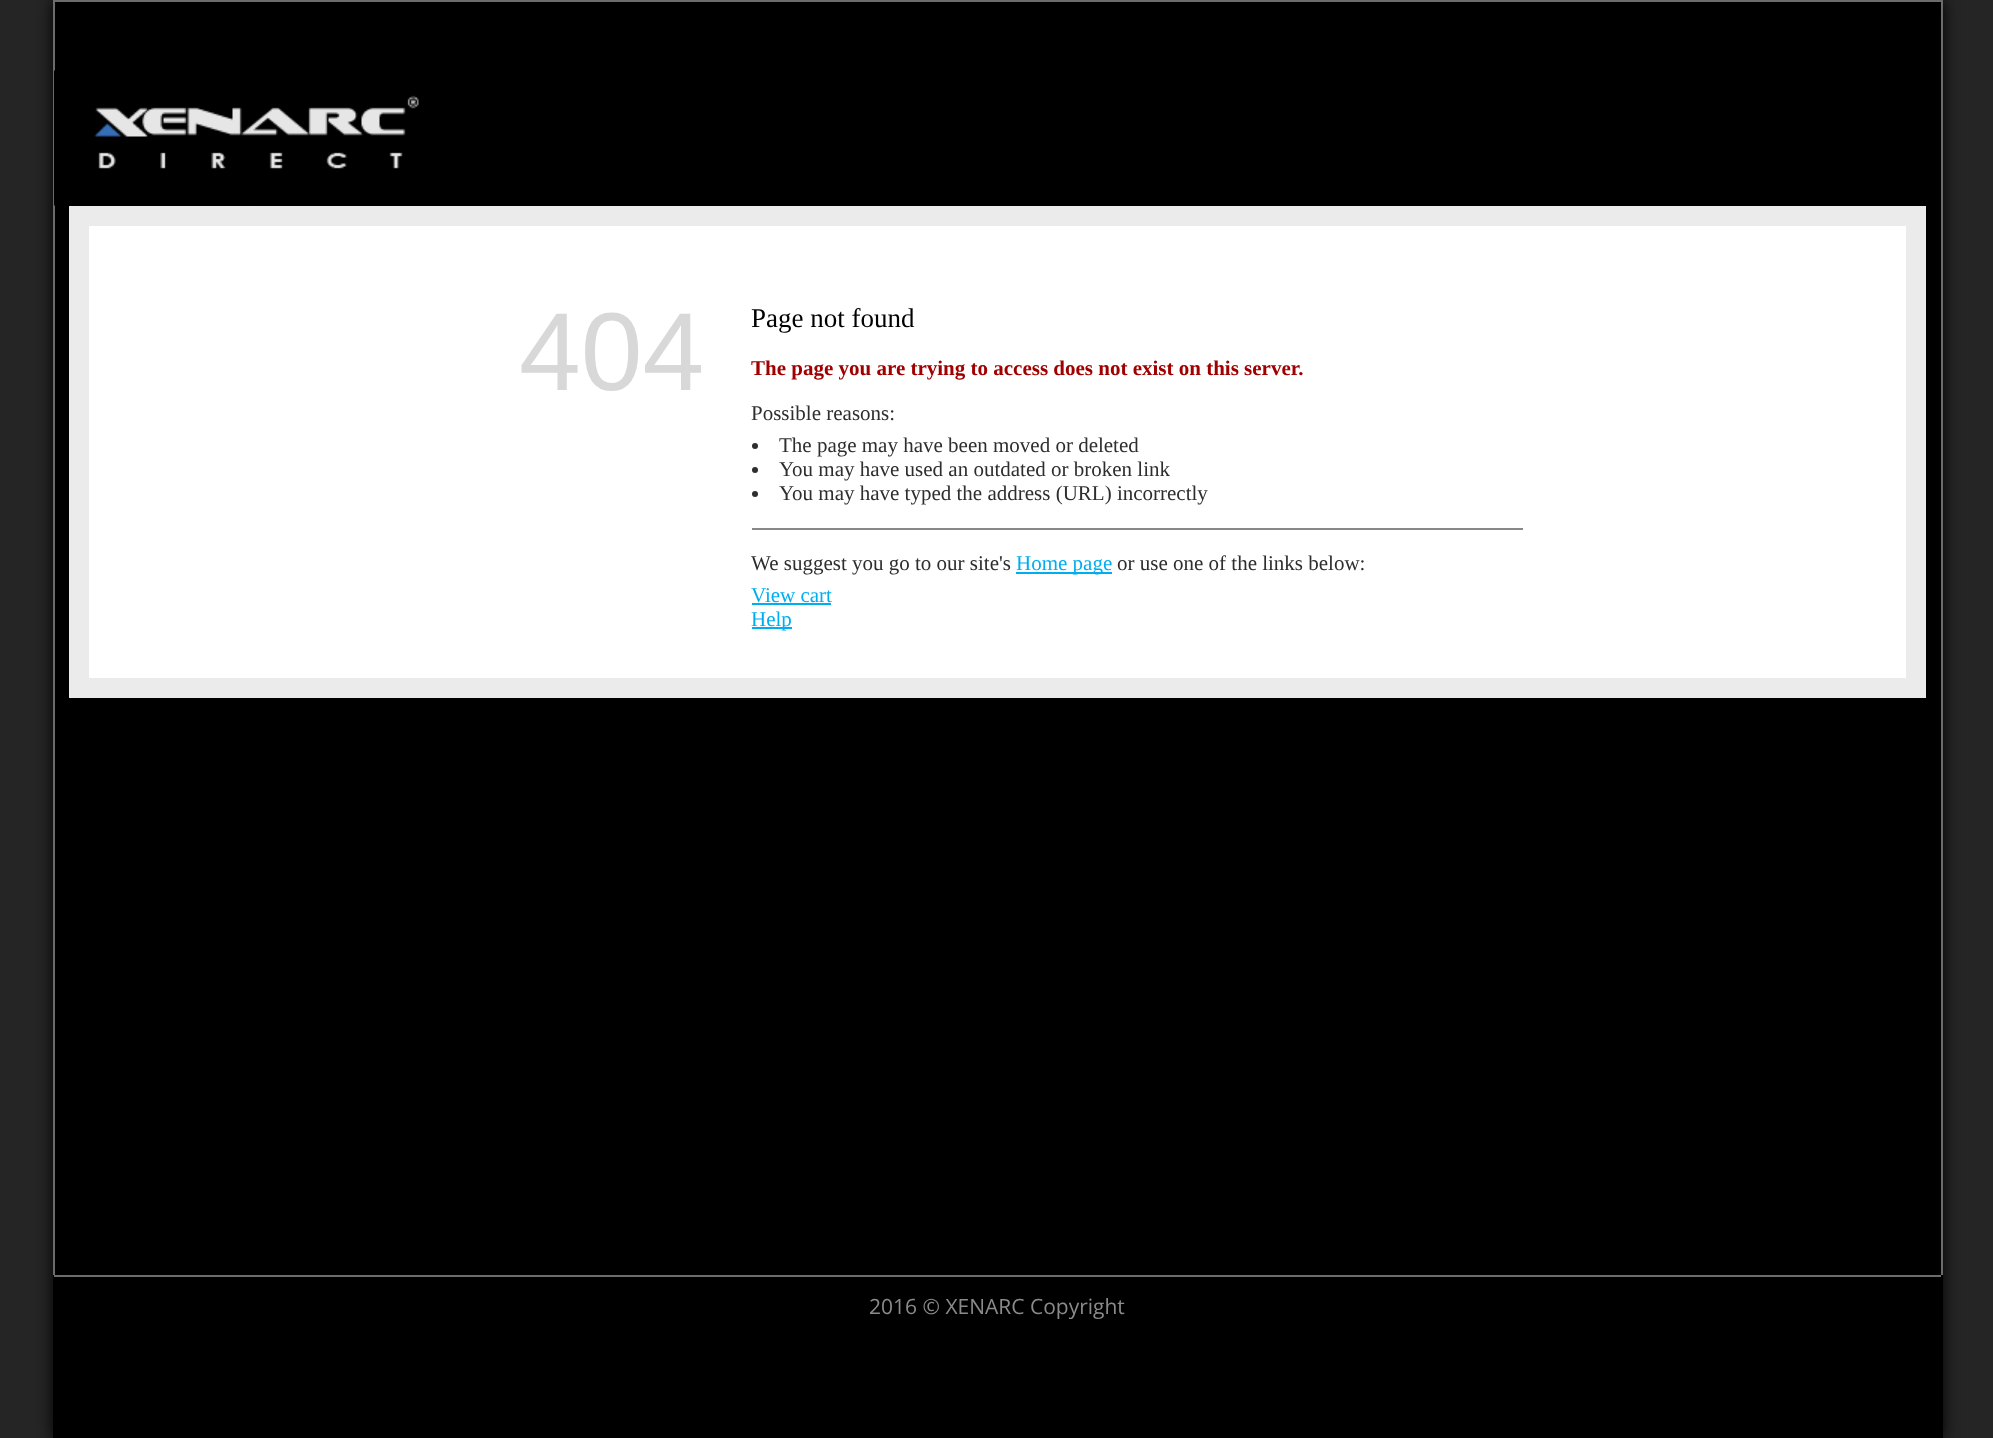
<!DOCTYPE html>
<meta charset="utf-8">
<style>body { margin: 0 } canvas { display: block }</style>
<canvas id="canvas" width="1993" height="1438"></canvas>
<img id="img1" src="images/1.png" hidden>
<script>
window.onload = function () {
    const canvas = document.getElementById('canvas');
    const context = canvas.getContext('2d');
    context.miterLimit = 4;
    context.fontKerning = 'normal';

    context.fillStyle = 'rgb(37, 37, 37)';
    context.fillRect(0, 0, 1993, 1438);
    context.fillStyle = 'rgb(0, 0, 0)';
    context.filter = 'blur(7.5px)';
    context.beginPath();
    context.rect(53, 0, 1890, 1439);
    context.fill();
    context.filter = 'none';
    context.fillRect(55, 2, 1886, 1436);
    context.fillStyle = 'rgb(109, 107, 108)';
    context.fillRect(53, 0, 1890, 2);
    context.fillRect(1941, 0, 2, 1275);
    context.fillRect(53, 0, 2, 1275);
    context.drawImage(document.getElementById('img1'), 54, 70, 365, 136);
    context.fillStyle = 'rgb(255, 255, 255)';
    context.beginPath();
    context.rect(79, 216, 1837, 472);
    context.fill();
    context.strokeStyle = 'rgb(235, 235, 235)';
    context.lineWidth = 20;
    context.stroke();
    context.fillStyle = 'rgb(46, 46, 46)';
    context.beginPath();
    context.arc(755, 446, 3, 0, 2 * Math.PI);
    context.fill();
    context.beginPath();
    context.arc(755, 470, 3, 0, 2 * Math.PI);
    context.fill();
    context.beginPath();
    context.arc(755, 494, 3, 0, 2 * Math.PI);
    context.fill();
    context.fillStyle = 'rgb(136, 136, 136)';
    context.fillRect(752, 528, 771, 2);
    context.fillStyle = 'rgb(0, 174, 239)';
    context.fillRect(1016, 572, 96, 2);
    context.fillRect(752, 603, 79, 2);
    context.fillRect(752, 627, 40, 2);
    context.fillStyle = 'rgb(0, 0, 0)';
    context.fillRect(1941, 1275, 2, 163);
    context.fillRect(53, 1275, 2, 163);
    context.fillStyle = 'rgb(109, 107, 108)';
    context.fillRect(54, 1275, 1887, 2);
    context.font = '111px Liberation Sans';
    context.fillStyle = 'rgb(216, 216, 216)';
    context.fillText('404', 519, 390);
    context.font = '27px Liberation Serif';
    context.fillStyle = 'rgb(0, 0, 0)';
    context.fillText('Page not found', 751, 327);
    context.font = 'bold 21px Liberation Serif';
    context.fillStyle = 'rgb(161, 0, 0)';
    context.fillText('The page you are trying to access does not exist on this server.', 751, 375);
    context.font = '21px Liberation Serif';
    context.fillStyle = 'rgb(46, 46, 46)';
    context.fillText('Possible reasons:', 751, 420);
    context.fillText('The page may have been moved or deleted', 779, 452);
    context.fillText('You may have used an outdated or broken link', 779, 476);
    context.fillText('You may have typed the address (URL) incorrectly', 779, 500);
    context.fillText('We suggest you go to our site\'s', 751, 570);
    context.fillStyle = 'rgb(0, 174, 239)';
    context.fillText('Home page', 1016, 570);
    context.fillStyle = 'rgb(46, 46, 46)';
    context.fillText('or use one of the links below:', 1117, 570);
    context.fillStyle = 'rgb(0, 174, 239)';
    context.fillText('View cart', 751, 602);
    context.fillText('Help', 751, 626);
    context.font = '21px Open Sans';
    context.fillStyle = 'rgb(139, 138, 138)';
    context.fillText('2016 © XENARC Copyright', 869, 1314);
};
</script>
